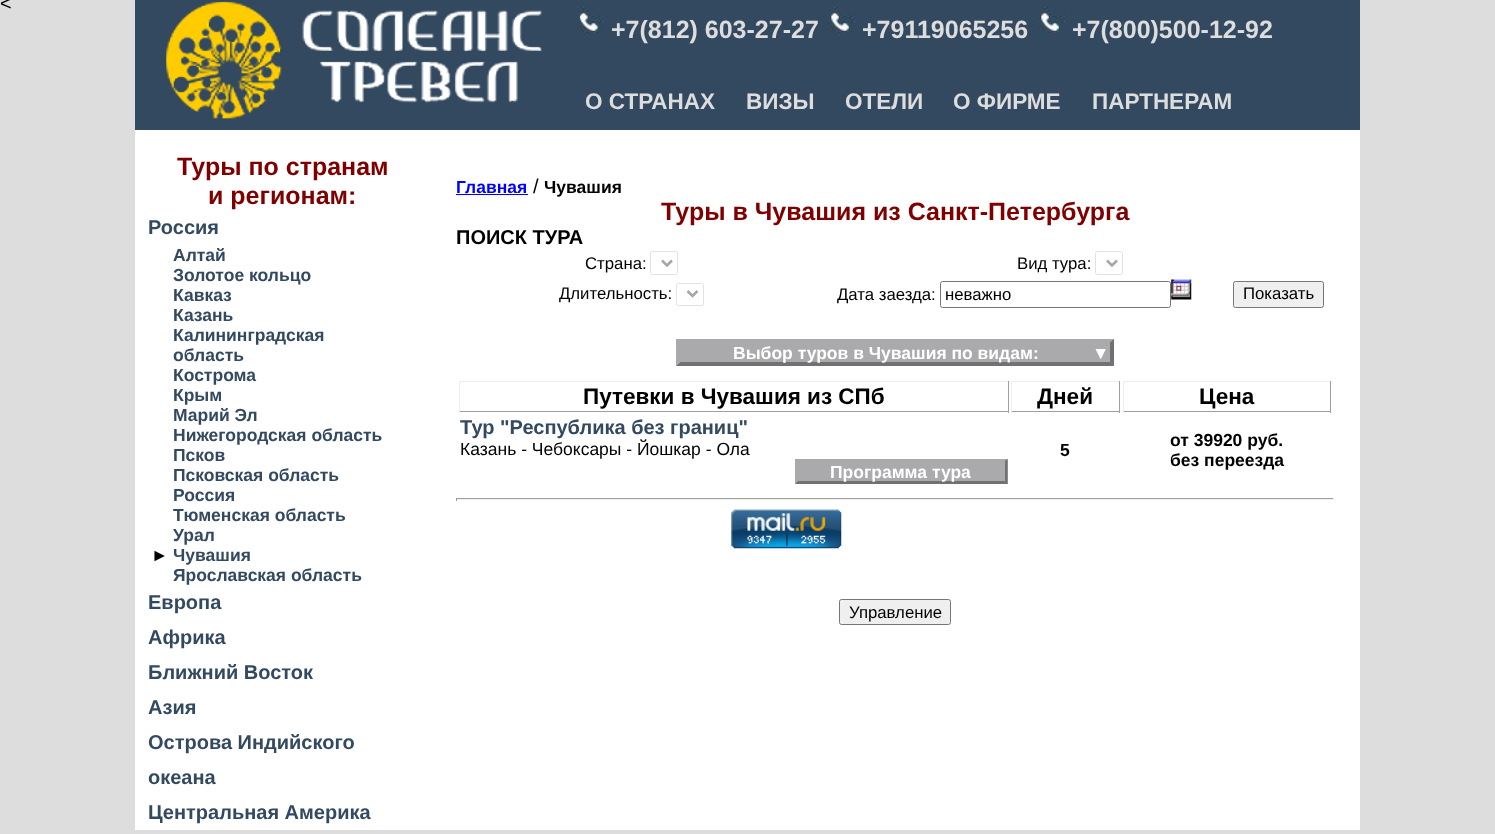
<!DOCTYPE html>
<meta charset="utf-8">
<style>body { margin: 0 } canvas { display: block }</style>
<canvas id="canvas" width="1495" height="834"></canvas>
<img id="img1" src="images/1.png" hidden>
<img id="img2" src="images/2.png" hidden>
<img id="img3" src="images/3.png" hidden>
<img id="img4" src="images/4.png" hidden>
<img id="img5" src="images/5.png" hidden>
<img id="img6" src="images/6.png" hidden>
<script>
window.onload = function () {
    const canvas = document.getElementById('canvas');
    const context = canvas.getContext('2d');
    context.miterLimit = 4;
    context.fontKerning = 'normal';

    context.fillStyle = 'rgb(221, 221, 221)';
    context.fillRect(0, 0, 1495, 834);
    context.fillStyle = 'rgb(255, 255, 255)';
    context.fillRect(135, 130, 1225, 700);
    context.fillStyle = 'rgb(51, 73, 96)';
    context.fillRect(135, 0, 1225, 130);
    context.drawImage(document.getElementById('img1'), 166, 1, 376, 118);
    context.drawImage(document.getElementById('img2'), 577, 7, 27, 28);
    context.drawImage(document.getElementById('img3'), 828, 7, 27, 28);
    context.drawImage(document.getElementById('img4'), 1038, 7, 27, 28);
    context.fillStyle = 'rgb(0, 0, 255)';
    context.fillRect(456, 194, 72, 1);
    context.beginPath();
    context.roundRect(650.5, 251.5, 27, 23, 2);
    context.strokeStyle = 'rgb(226, 226, 226)';
    context.stroke();
    context.beginPath();
    context.moveTo(662, 260.5);
    context.lineTo(667, 265.5);
    context.lineTo(672, 260.5);
    context.strokeStyle = 'rgb(166, 166, 166)';
    context.lineWidth = 2.5;
    context.stroke();
    context.beginPath();
    context.roundRect(1095.5, 251.5, 27, 23, 2);
    context.strokeStyle = 'rgb(226, 226, 226)';
    context.lineWidth = 1;
    context.stroke();
    context.beginPath();
    context.moveTo(1107, 260.5);
    context.lineTo(1112, 265.5);
    context.lineTo(1117, 260.5);
    context.strokeStyle = 'rgb(166, 166, 166)';
    context.lineWidth = 2.5;
    context.stroke();
    context.beginPath();
    context.roundRect(676.5, 283.5, 27, 22, 2);
    context.strokeStyle = 'rgb(226, 226, 226)';
    context.lineWidth = 1;
    context.stroke();
    context.beginPath();
    context.moveTo(687.5, 291);
    context.lineTo(692.5, 296);
    context.lineTo(697.5, 291);
    context.strokeStyle = 'rgb(166, 166, 166)';
    context.lineWidth = 2.5;
    context.stroke();
    context.beginPath();
    context.roundRect(940.5, 281.5, 230, 26, 2);
    context.strokeStyle = 'rgb(118, 118, 118)';
    context.lineWidth = 1;
    context.stroke();
    context.drawImage(document.getElementById('img5'), 1171, 279, 21, 21);
    context.fillStyle = 'rgb(239, 239, 239)';
    context.beginPath();
    context.roundRect(1233.5, 281.5, 90, 26, 2);
    context.fill();
    context.stroke();
    context.fillStyle = 'rgb(170, 170, 172)';
    context.fillRect(676, 339, 438, 27);
    context.fillStyle = 'rgb(113, 113, 115)';
    context.beginPath();
    context.moveTo(1114, 339);
    context.lineTo(1114, 366);
    context.lineTo(1110, 362.5);
    context.lineTo(1110, 342.5);
    context.closePath();
    context.fill();
    context.beginPath();
    context.moveTo(1114, 366);
    context.lineTo(676, 366);
    context.lineTo(680, 362);
    context.lineTo(1110, 362);
    context.closePath();
    context.fill();
    context.fillStyle = 'rgb(170, 170, 172)';
    context.beginPath();
    context.moveTo(676, 366);
    context.lineTo(676, 339);
    context.lineTo(680, 342.5);
    context.lineTo(680, 362.5);
    context.closePath();
    context.fill();
    context.fillStyle = 'rgb(238, 238, 238)';
    context.fillRect(459, 381, 550, 1);
    context.fillStyle = 'rgb(159, 159, 159)';
    context.fillRect(1008, 381, 1, 32);
    context.fillRect(459, 411, 550, 1);
    context.fillStyle = 'rgb(238, 238, 238)';
    context.fillRect(459, 381, 1, 32);
    context.fillRect(1011, 381, 109, 1);
    context.fillStyle = 'rgb(159, 159, 159)';
    context.fillRect(1119, 381, 1, 32);
    context.fillRect(1011, 411, 109, 1);
    context.fillStyle = 'rgb(238, 238, 238)';
    context.fillRect(1011, 381, 1, 32);
    context.fillRect(1123, 381, 208, 1);
    context.fillStyle = 'rgb(159, 159, 159)';
    context.fillRect(1330, 381, 1, 32);
    context.fillRect(1123, 411, 208, 1);
    context.fillStyle = 'rgb(238, 238, 238)';
    context.fillRect(1123, 381, 1, 32);
    context.fillStyle = 'rgb(170, 170, 172)';
    context.fillRect(795, 459, 213, 25);
    context.fillStyle = 'rgb(113, 113, 115)';
    context.beginPath();
    context.moveTo(1007.5, 459);
    context.lineTo(1007.5, 484);
    context.lineTo(1005, 481);
    context.lineTo(1005, 461);
    context.closePath();
    context.fill();
    context.beginPath();
    context.moveTo(1008, 484);
    context.lineTo(795, 484);
    context.lineTo(798, 481);
    context.lineTo(1005, 481);
    context.closePath();
    context.fill();
    context.fillStyle = 'rgb(170, 170, 172)';
    context.beginPath();
    context.moveTo(795, 484);
    context.lineTo(795, 459);
    context.lineTo(797.5, 461);
    context.lineTo(797.5, 481);
    context.closePath();
    context.fill();
    context.fillStyle = 'rgb(159, 159, 159)';
    context.fillRect(456, 498, 878, 1);
    context.fillStyle = 'rgb(238, 238, 238)';
    context.fillRect(1333, 498, 1, 3);
    context.fillRect(456, 499, 878, 1);
    context.fillStyle = 'rgb(159, 159, 159)';
    context.fillRect(456, 498, 1, 3);
    context.drawImage(document.getElementById('img6'), 731, 509, 111, 40);
    context.fillStyle = 'rgb(239, 239, 239)';
    context.beginPath();
    context.roundRect(839.5, 599.5, 111, 25, 2);
    context.fill();
    context.stroke();
    context.font = '20px Liberation Sans';
    context.fillStyle = 'rgb(0, 0, 0)';
    context.fillText('<', 0, 10);
    context.font = 'bold 25px Liberation Sans';
    context.fillStyle = 'rgb(221, 221, 221)';
    context.fillText('+7(812) 603-27-27', 611, 38);
    context.fillText('+79119065256', 862, 38);
    context.fillText('+7(800)500-12-92', 1072, 38);
    context.font = 'bold 22.5px Liberation Sans';
    context.fillText('О СТРАНАХ', 585, 109);
    context.fillText('ВИЗЫ', 746, 109);
    context.fillText('ОТЕЛИ', 845, 109);
    context.fillText('О ФИРМЕ', 953, 109);
    context.fillText('ПАРТНЕРАМ', 1092, 109);
    context.font = 'bold 25px Liberation Sans';
    context.fillStyle = 'rgb(128, 0, 0)';
    context.fillText('Туры по странам', 177, 175);
    context.fillText('и регионам:', 208, 204);
    context.font = 'bold 20px Liberation Sans';
    context.fillStyle = 'rgb(51, 73, 96)';
    context.fillText('Россия', 148, 234);
    context.font = 'bold 17.5px Liberation Sans';
    context.fillText('Алтай', 173, 261);
    context.fillText('Золотое кольцо', 173, 281);
    context.fillText('Кавказ', 173, 301);
    context.fillText('Казань', 173, 321);
    context.fillText('Калининградская', 173, 341);
    context.fillText('область', 173, 361);
    context.fillText('Кострома', 173, 381);
    context.fillText('Крым', 173, 401);
    context.fillText('Марий Эл', 173, 421);
    context.fillText('Нижегородская область', 173, 441);
    context.fillText('Псков', 173, 461);
    context.fillText('Псковская область', 173, 481);
    context.fillText('Россия', 173, 501);
    context.fillText('Тюменская область', 173, 521);
    context.fillText('Урал', 173, 541);
    context.fillStyle = 'rgb(0, 0, 0)';
    context.fillText('►', 151, 561);
    context.fillStyle = 'rgb(51, 73, 96)';
    context.fillText('Чувашия', 173, 561);
    context.fillText('Ярославская область', 173, 581);
    context.font = 'bold 20px Liberation Sans';
    context.fillText('Европа', 148, 609);
    context.fillText('Африка', 148, 644);
    context.fillText('Ближний Восток', 148, 679);
    context.fillText('Азия', 148, 714);
    context.fillText('Острова Индийского', 148, 749);
    context.fillText('океана', 148, 784);
    context.fillText('Центральная Америка', 148, 819);
    context.font = 'bold 17.5px Liberation Sans';
    context.fillStyle = 'rgb(0, 0, 255)';
    context.fillText('Главная', 456, 193);
    context.font = '20px Liberation Sans';
    context.fillStyle = 'rgb(0, 0, 0)';
    context.fillText('/', 533, 193);
    context.font = 'bold 17.5px Liberation Sans';
    context.fillText('Чувашия', 544, 193);
    context.font = 'bold 25px Liberation Sans';
    context.fillStyle = 'rgb(128, 0, 0)';
    context.fillText('Туры в Чувашия из Санкт-Петербурга', 661, 220);
    context.font = 'bold 20px Liberation Sans';
    context.fillStyle = 'rgb(0, 0, 0)';
    context.fillText('ПОИСК ТУРА', 456, 244);
    context.font = '16.75px Liberation Sans';
    context.fillText('Страна:', 585, 269);
    context.fillText('Вид тура:', 1017, 269);
    context.fillText('Длительность:', 559, 299);
    context.fillText('Дата заезда:', 837, 300);
    context.fillText('неважно', 945, 300);
    context.fillText('Показать', 1243, 299);
    context.font = 'bold 17.5px Liberation Sans';
    context.fillStyle = 'rgb(255, 255, 255)';
    context.fillText('Выбор туров в Чувашия по видам:', 733, 359);
    context.fillText('▼', 1092, 359);
    context.font = 'bold 22.5px Liberation Sans';
    context.fillStyle = 'rgb(0, 0, 0)';
    context.fillText('Путевки в Чувашия из СПб', 583, 404);
    context.fillText('Дней', 1037, 404);
    context.fillText('Цена', 1199, 404);
    context.font = 'bold 20px Liberation Sans';
    context.fillStyle = 'rgb(51, 73, 96)';
    context.fillText('Тур "Республика без границ"', 460, 434);
    context.font = '17.5px Liberation Sans';
    context.fillStyle = 'rgb(0, 0, 0)';
    context.fillText('Казань - Чебоксары - Йошкар - Ола', 460, 455);
    context.font = 'bold 17.5px Liberation Sans';
    context.fillStyle = 'rgb(255, 255, 255)';
    context.fillText('Программа тура', 830, 478);
    context.fillStyle = 'rgb(0, 0, 0)';
    context.fillText('5', 1060, 456);
    context.fillText('от 39920 руб.', 1170, 446);
    context.fillText('без переезда', 1170, 466);
    context.font = '16.75px Liberation Sans';
    context.fillText('Управление', 849, 618);
};
</script>
